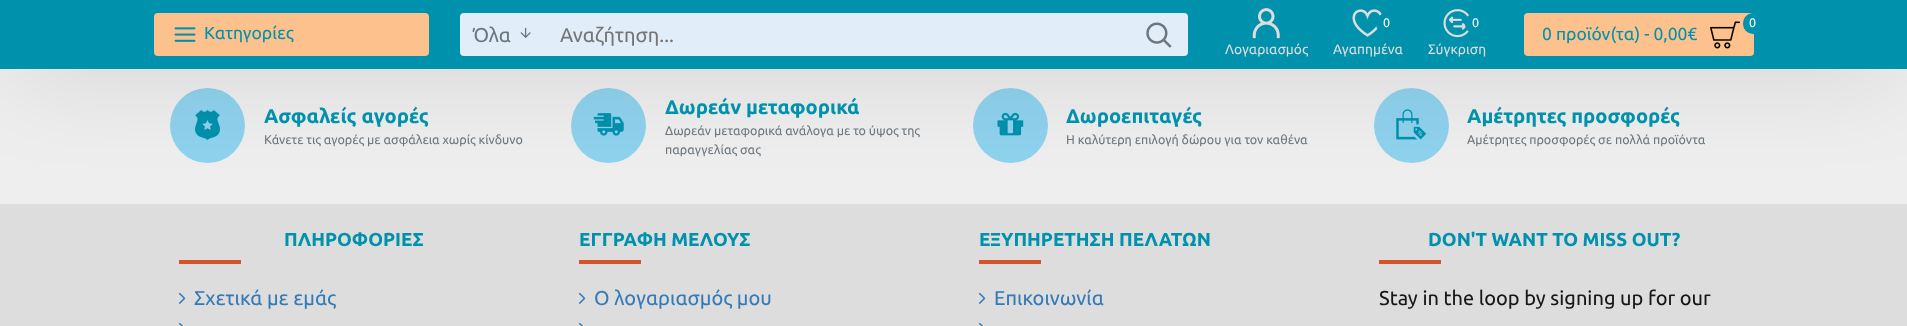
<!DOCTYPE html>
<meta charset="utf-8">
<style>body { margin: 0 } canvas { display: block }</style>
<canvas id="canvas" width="1907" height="326"></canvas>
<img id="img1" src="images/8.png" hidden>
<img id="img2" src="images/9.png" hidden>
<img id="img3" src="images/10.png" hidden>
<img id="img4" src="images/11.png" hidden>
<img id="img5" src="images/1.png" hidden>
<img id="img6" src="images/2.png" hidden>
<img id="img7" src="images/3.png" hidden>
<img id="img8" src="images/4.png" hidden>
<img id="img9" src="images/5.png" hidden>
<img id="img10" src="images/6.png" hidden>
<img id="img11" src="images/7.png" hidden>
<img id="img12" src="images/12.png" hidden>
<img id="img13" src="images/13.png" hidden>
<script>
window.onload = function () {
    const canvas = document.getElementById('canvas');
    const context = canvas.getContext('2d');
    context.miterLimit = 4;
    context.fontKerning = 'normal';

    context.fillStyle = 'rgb(221, 221, 221)';
    context.fillRect(0, 0, 1907, 326);
    context.fillStyle = 'rgb(238, 238, 238)';
    context.fillRect(0, 69, 1907, 135);
    context.fillStyle = 'rgb(143, 210, 238)';
    context.beginPath();
    context.arc(207.5, 125.5, 37.5, 0, 2 * Math.PI);
    context.fill();
    context.drawImage(document.getElementById('img1'), 195, 110, 25, 30);
    context.beginPath();
    context.arc(608.5, 125.5, 37.5, 0, 2 * Math.PI);
    context.fill();
    context.drawImage(document.getElementById('img2'), 593, 113, 31, 23);
    context.beginPath();
    context.arc(1010.5, 125.5, 37.5, 0, 2 * Math.PI);
    context.fill();
    context.drawImage(document.getElementById('img3'), 997, 112, 27, 24);
    context.beginPath();
    context.arc(1411.5, 125.5, 37.5, 0, 2 * Math.PI);
    context.fill();
    context.drawImage(document.getElementById('img4'), 1396, 109, 31, 31);
    context.fillStyle = 'rgba(0, 0, 0, 0.2)';
    context.filter = 'blur(53px)';
    context.beginPath();
    context.rect(13, 13, 1882, 43);
    context.fill();
    context.filter = 'none';
    context.fillStyle = 'rgb(0, 145, 172)';
    context.fillRect(0, 0, 1907, 69);
    context.fillStyle = 'rgb(252, 193, 140)';
    context.beginPath();
    context.roundRect(154, 13, 275, 43, 4);
    context.fill();
    context.drawImage(document.getElementById('img5'), 174, 27, 22, 15);
    context.fillStyle = 'rgb(225, 238, 250)';
    context.beginPath();
    context.roundRect(460, 13, 85, 43, [4, 0, 0, 4]);
    context.fill();
    context.drawImage(document.getElementById('img6'), 520, 27, 11, 11);
    context.fillRect(545, 13, 586, 43);
    context.beginPath();
    context.roundRect(1131, 13, 57, 43, [0, 4, 4, 0]);
    context.fill();
    context.drawImage(document.getElementById('img7'), 1146, 22, 26, 26);
    context.drawImage(document.getElementById('img8'), 1252, 8, 28, 31);
    context.drawImage(document.getElementById('img9'), 1352, 9, 30, 28);
    context.fillStyle = 'rgb(0, 145, 172)';
    context.beginPath();
    context.roundRect(1376, 13, 20, 21, 10);
    context.fill();
    context.drawImage(document.getElementById('img10'), 1443, 9, 26, 29);
    context.beginPath();
    context.roundRect(1465, 13, 20, 21, 10);
    context.fill();
    context.fillStyle = 'rgb(252, 193, 140)';
    context.beginPath();
    context.roundRect(1524, 13, 230, 43, 4);
    context.fill();
    context.drawImage(document.getElementById('img11'), 1710, 21, 30, 28);
    context.fillStyle = 'rgb(0, 145, 172)';
    context.beginPath();
    context.roundRect(1743, 13, 20, 21, 10);
    context.fill();
    context.fillStyle = 'rgb(212, 85, 43)';
    context.fillRect(179, 260, 62, 4);
    context.drawImage(document.getElementById('img12'), 178, 292, 8, 12);
    context.drawImage(document.getElementById('img13'), 178, 322, 5, 4);
    context.fillRect(579, 260, 62, 4);
    context.drawImage(document.getElementById('img12'), 578, 292, 8, 12);
    context.drawImage(document.getElementById('img13'), 578, 322, 5, 4);
    context.fillRect(979, 260, 62, 4);
    context.drawImage(document.getElementById('img12'), 978, 292, 8, 12);
    context.drawImage(document.getElementById('img13'), 978, 322, 5, 4);
    context.fillRect(1379, 260, 62, 4);
    context.font = '17.5px Ubuntu';
    context.fillStyle = 'rgb(0, 145, 172)';
    context.fillText('Κατηγορίες', 204, 39);
    context.font = '20px Ubuntu';
    context.fillStyle = 'rgb(109, 118, 125)';
    context.fillText('Όλα', 473, 42);
    context.fillStyle = 'rgb(117, 117, 117)';
    context.fillText('Αναζήτηση...', 560, 42);
    context.font = '13.75px Ubuntu';
    context.fillStyle = 'rgb(221, 221, 221)';
    context.fillText('Λογαριασμός', 1225, 54);
    context.font = '12.5px Ubuntu';
    context.fillStyle = 'rgb(255, 255, 255)';
    context.fillText('0', 1383, 27);
    context.font = '13.75px Ubuntu';
    context.fillStyle = 'rgb(221, 221, 221)';
    context.fillText('Αγαπημένα', 1333, 54);
    context.font = '12.5px Ubuntu';
    context.fillStyle = 'rgb(255, 255, 255)';
    context.fillText('0', 1472, 27);
    context.font = '13.75px Ubuntu';
    context.fillStyle = 'rgb(221, 221, 221)';
    context.fillText('Σύγκριση', 1428, 54);
    context.font = '17.5px Ubuntu';
    context.fillStyle = 'rgb(0, 145, 172)';
    context.fillText('0 προϊόν(τα) - 0,00€', 1542, 40);
    context.font = '12.5px Ubuntu';
    context.fillStyle = 'rgb(255, 255, 255)';
    context.fillText('0', 1749, 27);
    context.font = 'bold 20px Ubuntu';
    context.fillStyle = 'rgb(0, 145, 172)';
    context.fillText('Ασφαλείς αγορές', 264, 123);
    context.font = '12.5px Ubuntu';
    context.fillStyle = 'rgb(109, 118, 125)';
    context.fillText('Κάνετε τις αγορές με ασφάλεια χωρίς κίνδυνο', 264, 144);
    context.font = 'bold 20px Ubuntu';
    context.fillStyle = 'rgb(0, 145, 172)';
    context.fillText('Δωρεάν μεταφορικά', 665, 114);
    context.font = '12.5px Ubuntu';
    context.fillStyle = 'rgb(109, 118, 125)';
    context.fillText('Δωρεάν μεταφορικά ανάλογα με το ύψος της', 665, 135);
    context.fillText('παραγγελίας σας', 665, 154);
    context.font = 'bold 20px Ubuntu';
    context.fillStyle = 'rgb(0, 145, 172)';
    context.fillText('Δωροεπιταγές', 1066, 123);
    context.font = '12.5px Ubuntu';
    context.fillStyle = 'rgb(109, 118, 125)';
    context.fillText('Η καλύτερη επιλογή δώρου για τον καθένα', 1066, 144);
    context.font = 'bold 20px Ubuntu';
    context.fillStyle = 'rgb(0, 145, 172)';
    context.fillText('Αμέτρητες προσφορές', 1467, 123);
    context.font = '12.5px Ubuntu';
    context.fillStyle = 'rgb(109, 118, 125)';
    context.fillText('Αμέτρητες προσφορές σε πολλά προϊόντα', 1467, 144);
    context.font = 'bold 18.75px Ubuntu';
    context.fillStyle = 'rgb(0, 145, 172)';
    context.fillText('ΠΛΗΡΟΦΟΡΙΕΣ', 284, 246);
    context.font = '20px Ubuntu';
    context.fillStyle = 'rgb(51, 122, 183)';
    context.fillText('Σχετικά με εμάς', 194, 305);
    context.font = 'bold 18.75px Ubuntu';
    context.fillStyle = 'rgb(0, 145, 172)';
    context.fillText('ΕΓΓΡΑΦΗ ΜΕΛΟΥΣ', 579, 246);
    context.font = '20px Ubuntu';
    context.fillStyle = 'rgb(51, 122, 183)';
    context.fillText('Ο λογαριασμός μου', 594, 305);
    context.font = 'bold 18.75px Ubuntu';
    context.fillStyle = 'rgb(0, 145, 172)';
    context.fillText('ΕΞΥΠΗΡΕΤΗΣΗ ΠΕΛΑΤΩΝ', 979, 246);
    context.font = '20px Ubuntu';
    context.fillStyle = 'rgb(51, 122, 183)';
    context.fillText('Επικοινωνία', 994, 305);
    context.font = 'bold 18.75px Ubuntu';
    context.fillStyle = 'rgb(0, 145, 172)';
    context.fillText('DON\'T WANT TO MISS OUT?', 1428, 246);
    context.font = '20px Ubuntu';
    context.fillStyle = 'rgb(22, 23, 24)';
    context.fillText('Stay in the loop by signing up for our', 1379, 305);
};
</script>
